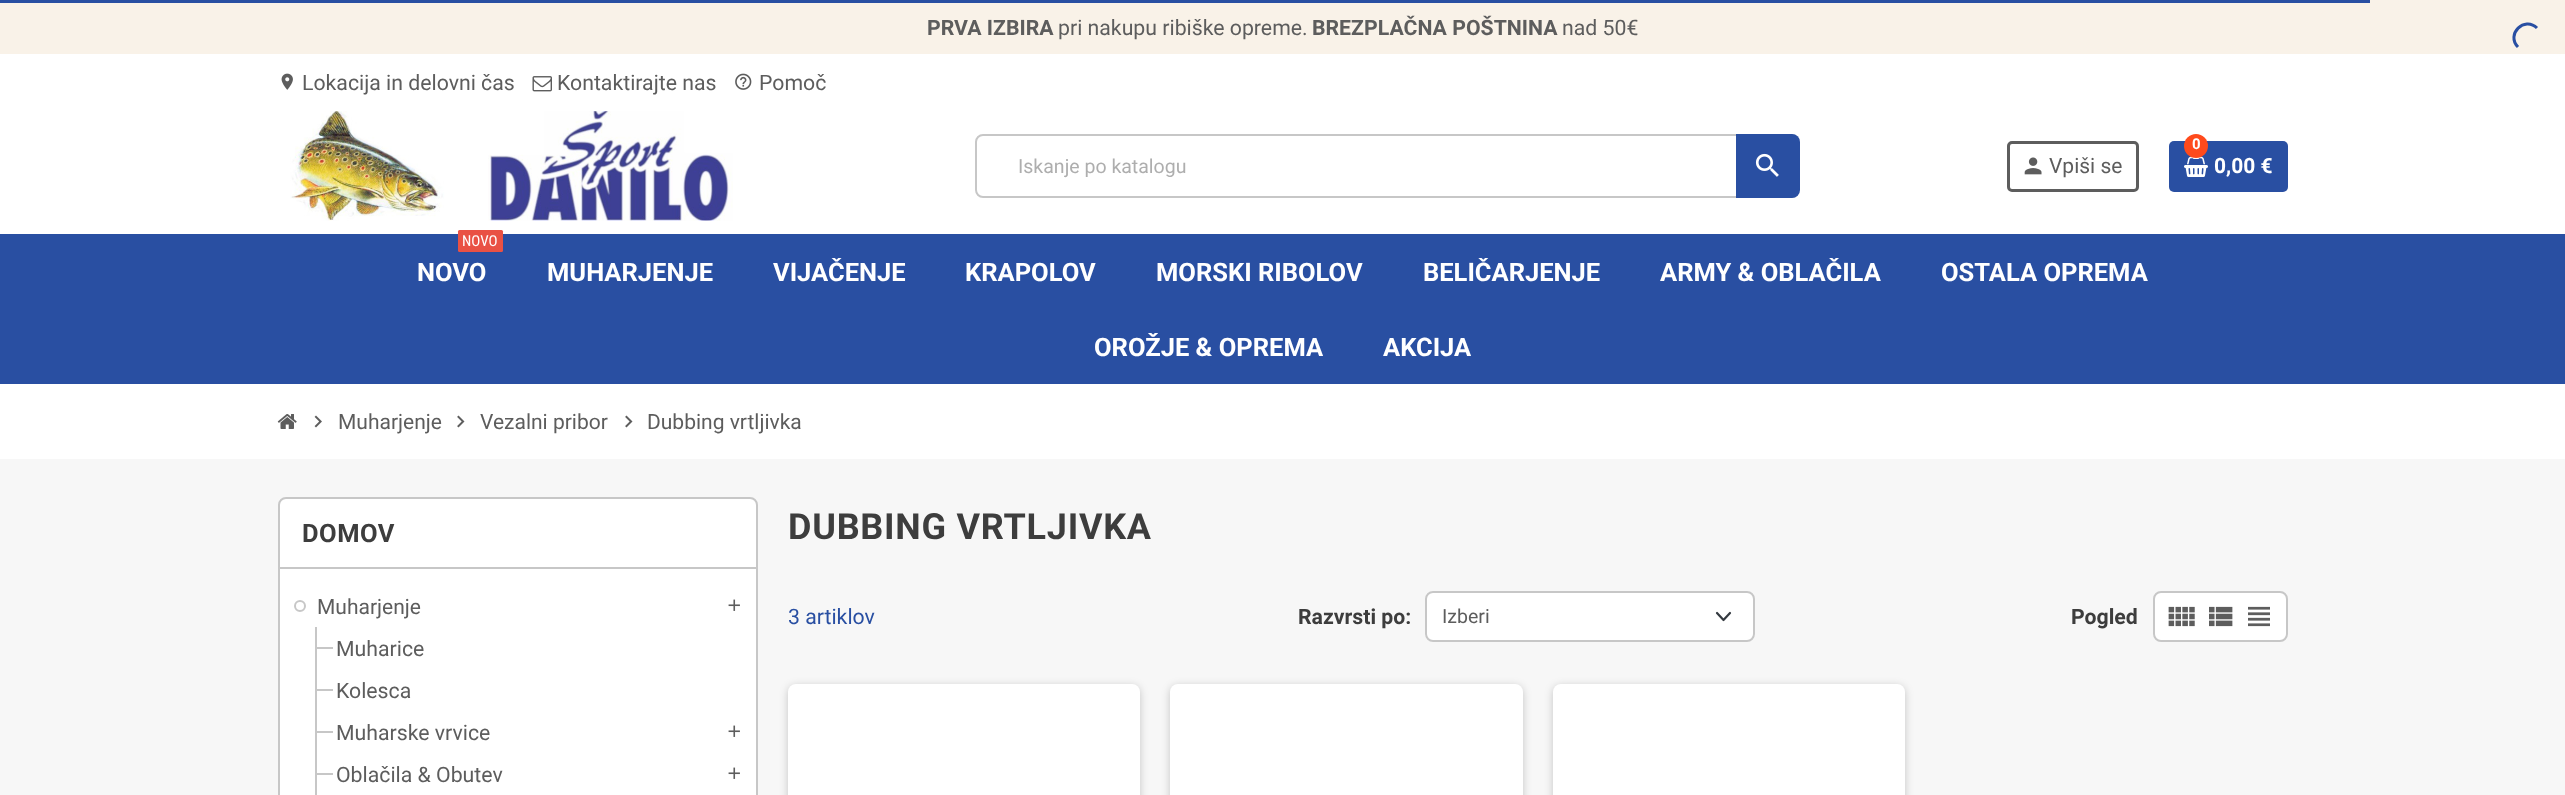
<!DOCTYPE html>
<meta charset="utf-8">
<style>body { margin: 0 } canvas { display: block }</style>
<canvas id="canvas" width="2565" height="795"></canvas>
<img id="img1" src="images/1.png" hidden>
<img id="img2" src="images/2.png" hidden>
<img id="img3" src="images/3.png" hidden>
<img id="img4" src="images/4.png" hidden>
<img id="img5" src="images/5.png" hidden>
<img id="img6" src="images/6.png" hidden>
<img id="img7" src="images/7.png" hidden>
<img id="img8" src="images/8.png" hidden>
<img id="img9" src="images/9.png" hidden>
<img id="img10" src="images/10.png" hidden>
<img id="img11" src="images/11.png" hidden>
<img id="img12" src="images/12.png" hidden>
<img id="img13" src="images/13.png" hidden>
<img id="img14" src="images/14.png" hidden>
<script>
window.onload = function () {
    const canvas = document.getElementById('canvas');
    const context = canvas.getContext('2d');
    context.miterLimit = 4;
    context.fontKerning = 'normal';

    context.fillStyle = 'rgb(255, 255, 255)';
    context.fillRect(0, 0, 2565, 795);
    context.fillStyle = 'rgb(249, 242, 232)';
    context.fillRect(0, 0, 2565, 54);
    context.fillStyle = 'rgb(41, 79, 162)';
    context.fillRect(0, 0, 2370, 3);
    context.beginPath();
    context.moveTo(2518, 47);
    context.bezierCurveTo(2505.5, 34.5, 2524.5, 15.5, 2537, 28);
    context.strokeStyle = 'rgb(41, 79, 162)';
    context.lineWidth = 3;
    context.stroke();
    context.drawImage(document.getElementById('img1'), 281, 73, 12, 17);
    context.drawImage(document.getElementById('img2'), 532, 76, 20, 16);
    context.drawImage(document.getElementById('img3'), 735, 73, 17, 17);
    context.drawImage(document.getElementById('img4'), 290, 111, 443, 110);
    context.beginPath();
    context.roundRect(976, 135, 822, 62, 7);
    context.strokeStyle = 'rgb(199, 199, 199)';
    context.lineWidth = 2;
    context.stroke();
    context.beginPath();
    context.roundRect(1736, 134, 64, 64, [0, 8, 8, 0]);
    context.fill();
    context.drawImage(document.getElementById('img5'), 1755, 153, 24, 24);
    context.beginPath();
    context.roundRect(2008.5, 142.5, 129, 48, 3.5);
    context.strokeStyle = 'rgb(93, 93, 93)';
    context.lineWidth = 3;
    context.stroke();
    context.drawImage(document.getElementById('img6'), 2024, 157, 18, 18);
    context.beginPath();
    context.roundRect(2169, 141, 119, 51, 5);
    context.fill();
    context.drawImage(document.getElementById('img7'), 2184, 156, 24, 21);
    context.fillStyle = 'rgb(255, 74, 28)';
    context.beginPath();
    context.arc(2196, 146, 12, 0, 2 * Math.PI);
    context.fill();
    context.fillStyle = 'rgb(41, 79, 162)';
    context.fillRect(0, 234, 2565, 150);
    context.fillStyle = 'rgb(233, 81, 68)';
    context.beginPath();
    context.roundRect(458, 230, 45, 22, 1.5);
    context.fill();
    context.fillStyle = 'rgb(247, 247, 247)';
    context.fillRect(0, 459, 2565, 336);
    context.drawImage(document.getElementById('img8'), 277, 414, 20, 15);
    context.drawImage(document.getElementById('img9'), 314, 415, 8, 13);
    context.drawImage(document.getElementById('img10'), 457, 415, 8, 13);
    context.drawImage(document.getElementById('img10'), 625, 415, 8, 13);
    context.fillStyle = 'rgb(255, 255, 255)';
    context.beginPath();
    context.roundRect(279, 498, 478, 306, 7);
    context.fill();
    context.strokeStyle = 'rgb(199, 199, 199)';
    context.lineWidth = 2;
    context.stroke();
    context.fillStyle = 'rgb(199, 199, 199)';
    context.fillRect(279, 567, 477, 2);
    context.beginPath();
    context.arc(300, 606, 5, 0, 2 * Math.PI);
    context.stroke();
    context.drawImage(document.getElementById('img11'), 728, 599, 12, 12);
    context.fillRect(315, 647, 18, 2);
    context.fillRect(315, 627, 2, 42);
    context.fillRect(315, 689, 18, 2);
    context.fillRect(315, 669, 2, 42);
    context.fillRect(315, 731, 18, 2);
    context.fillRect(315, 711, 2, 42);
    context.drawImage(document.getElementById('img11'), 728, 725, 12, 12);
    context.fillRect(315, 773, 18, 2);
    context.fillRect(315, 753, 2, 42);
    context.drawImage(document.getElementById('img11'), 728, 767, 12, 12);
    context.fillStyle = 'rgb(255, 255, 255)';
    context.beginPath();
    context.roundRect(1425, 591, 330, 51, 8);
    context.fill();
    context.beginPath();
    context.moveTo(1717, 613);
    context.lineTo(1723.5, 620);
    context.lineTo(1730, 613);
    context.strokeStyle = 'rgb(52, 58, 64)';
    context.lineWidth = 2.2;
    context.lineCap = 'round';
    context.lineJoin = 'round';
    context.stroke();
    context.beginPath();
    context.roundRect(1426, 592, 328, 49, 7);
    context.strokeStyle = 'rgb(199, 199, 199)';
    context.lineWidth = 2;
    context.lineJoin = 'miter';
    context.stroke();
    context.beginPath();
    context.roundRect(2154, 592, 133, 49, 7);
    context.fill();
    context.stroke();
    context.drawImage(document.getElementById('img12'), 2168, 606, 27, 21);
    context.drawImage(document.getElementById('img13'), 2209, 606, 24, 21);
    context.drawImage(document.getElementById('img14'), 2248, 606, 22, 21);
    context.fillStyle = 'rgba(0, 0, 0, 0.2)';
    context.filter = 'blur(4px)';
    context.beginPath();
    context.roundRect(788, 686, 352, 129, 8);
    context.fill();
    context.filter = 'none';
    context.fillStyle = 'rgb(255, 255, 255)';
    context.beginPath();
    context.roundRect(788, 684, 352, 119, 8);
    context.fill();
    context.fillStyle = 'rgba(0, 0, 0, 0.2)';
    context.filter = 'blur(4px)';
    context.beginPath();
    context.roundRect(1170, 686, 353, 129, 8);
    context.fill();
    context.filter = 'none';
    context.fillStyle = 'rgb(255, 255, 255)';
    context.beginPath();
    context.roundRect(1170, 684, 353, 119, 8);
    context.fill();
    context.fillStyle = 'rgba(0, 0, 0, 0.2)';
    context.filter = 'blur(4px)';
    context.beginPath();
    context.roundRect(1553, 686, 352, 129, 8);
    context.fill();
    context.filter = 'none';
    context.fillStyle = 'rgb(255, 255, 255)';
    context.beginPath();
    context.roundRect(1553, 684, 352, 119, 8);
    context.fill();
    context.font = 'bold 21.25px Roboto';
    context.fillStyle = 'rgb(93, 93, 93)';
    context.fillText('PRVA IZBIRA', 927, 35);
    context.font = '21.25px Roboto';
    context.fillText('pri nakupu ribiške opreme.', 1058, 35);
    context.font = 'bold 21.25px Roboto';
    context.fillText('BREZPLAČNA POŠTNINA', 1312, 35);
    context.font = '21.25px Roboto';
    context.fillText('nad 50€', 1562, 35);
    context.fillText('Lokacija in delovni čas', 302, 90);
    context.fillText('Kontaktirajte nas', 557, 90);
    context.fillText('Pomoč', 759, 90);
    context.font = '19.5px Roboto';
    context.fillStyle = 'rgb(174, 174, 174)';
    context.fillText('Iskanje po katalogu', 1018, 173);
    context.font = '21px Roboto';
    context.fillStyle = 'rgb(93, 93, 93)';
    context.fillText('Vpiši se', 2049, 173);
    context.font = 'bold 15px Roboto';
    context.fillStyle = 'rgb(255, 255, 255)';
    context.fillText('0', 2192, 149);
    context.font = 'bold 21px Roboto';
    context.fillText('0,00 €', 2214, 173);
    context.font = '15px Roboto Condensed';
    context.fillText('NOVO', 462, 246);
    context.font = 'bold 25.5px "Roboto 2"';
    context.fillText('NOVO', 417, 281);
    context.fillText('MUHARJENJE', 547, 281);
    context.fillText('VIJAČENJE', 773, 281);
    context.fillText('KRAPOLOV', 965, 281);
    context.fillText('MORSKI RIBOLOV', 1156, 281);
    context.fillText('BELIČARJENJE', 1423, 281);
    context.fillText('ARMY & OBLAČILA', 1660, 281);
    context.fillText('OSTALA OPREMA', 1941, 281);
    context.fillText('OROŽJE & OPREMA', 1094, 356);
    context.fillText('AKCIJA', 1383, 356);
    context.font = '21px Roboto';
    context.fillStyle = 'rgb(93, 93, 93)';
    context.fillText('Muharjenje', 338, 429);
    context.fillText('Vezalni pribor', 480, 429);
    context.fillText('Dubbing vrtljivka', 647, 429);
    context.letterSpacing = '0.5px';
    context.font = 'bold 25.5px "Roboto 2"';
    context.fillStyle = 'rgb(61, 61, 61)';
    context.fillText('DOMOV', 302, 542);
    context.letterSpacing = '0px';
    context.font = '21px Roboto';
    context.fillStyle = 'rgb(93, 93, 93)';
    context.fillText('Muharjenje', 317, 614);
    context.font = '21.25px Roboto';
    context.fillText('Muharice', 336, 656);
    context.fillText('Kolesca', 336, 698);
    context.fillText('Muharske vrvice', 336, 740);
    context.fillText('Oblačila & Obutev', 336, 782);
    context.letterSpacing = '0.75px';
    context.font = 'bold 36px "Roboto 2"';
    context.fillStyle = 'rgb(61, 61, 61)';
    context.fillText('DUBBING VRTLJIVKA', 788, 539);
    context.letterSpacing = '0px';
    context.font = '21.25px Roboto';
    context.fillStyle = 'rgb(41, 79, 162)';
    context.fillText('3 artiklov', 788, 624);
    context.font = 'bold 21.25px Roboto';
    context.fillStyle = 'rgb(61, 61, 61)';
    context.fillText('Razvrsti po:', 1298, 624);
    context.font = '19.5px Roboto';
    context.fillStyle = 'rgb(93, 93, 93)';
    context.fillText('Izberi', 1442, 623);
    context.font = 'bold 21.25px Roboto';
    context.fillStyle = 'rgb(61, 61, 61)';
    context.fillText('Pogled', 2071, 624);
};
</script>
